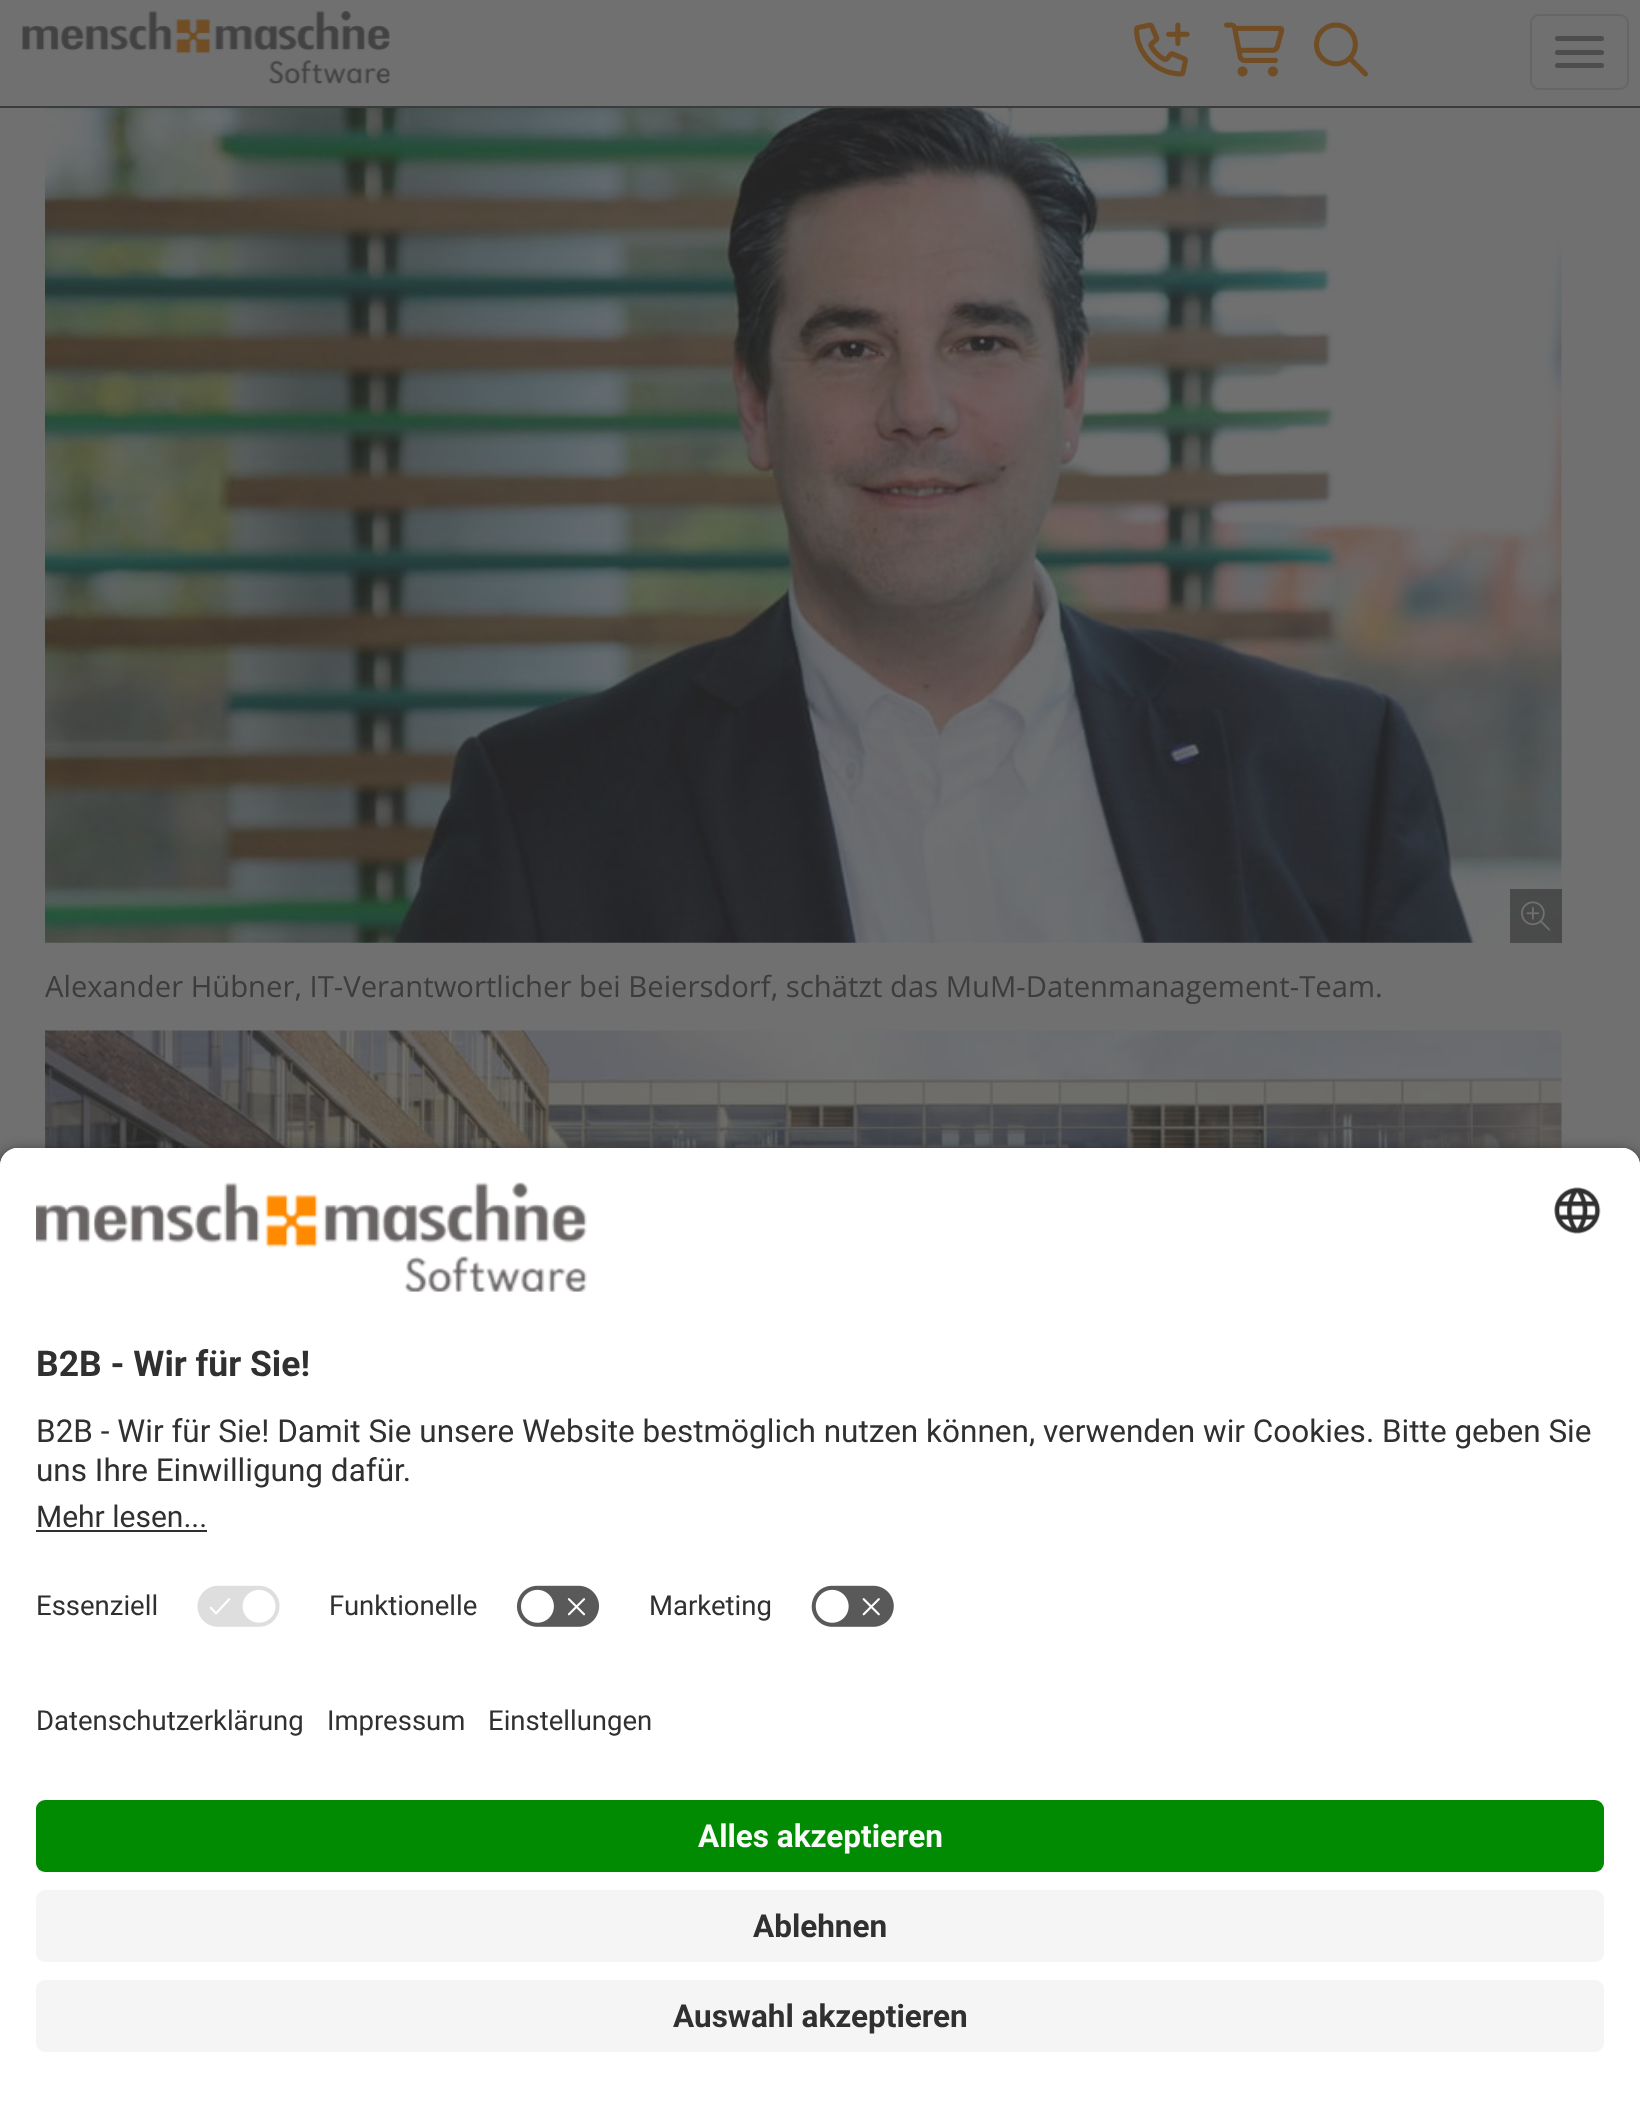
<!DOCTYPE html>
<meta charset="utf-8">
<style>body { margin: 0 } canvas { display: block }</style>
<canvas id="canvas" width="1640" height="2114"></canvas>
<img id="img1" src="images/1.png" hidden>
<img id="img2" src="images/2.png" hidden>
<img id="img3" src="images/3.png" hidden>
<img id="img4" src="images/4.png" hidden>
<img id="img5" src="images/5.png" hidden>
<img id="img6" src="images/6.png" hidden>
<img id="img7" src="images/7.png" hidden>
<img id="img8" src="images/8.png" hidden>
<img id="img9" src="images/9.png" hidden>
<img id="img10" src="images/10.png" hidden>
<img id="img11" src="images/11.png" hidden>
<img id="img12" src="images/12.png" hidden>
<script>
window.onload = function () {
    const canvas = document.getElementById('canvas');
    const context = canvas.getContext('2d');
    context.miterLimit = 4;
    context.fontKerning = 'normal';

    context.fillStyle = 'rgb(112, 112, 112)';
    context.fillRect(0, 0, 1640, 2114);
    context.fillStyle = 'rgb(60, 60, 60)';
    context.fillRect(0, 106, 1640, 2);
    context.drawImage(document.getElementById('img1'), 22, 11, 368, 73);
    context.beginPath();
    context.roundRect(1531, 15, 97, 74, 8);
    context.strokeStyle = 'rgb(102, 102, 102)';
    context.lineWidth = 2;
    context.stroke();
    context.fillStyle = 'rgb(77, 77, 77)';
    context.beginPath();
    context.roundRect(1555, 36, 49, 5, 2.5);
    context.fill();
    context.beginPath();
    context.roundRect(1555, 50, 49, 5, 2.5);
    context.fill();
    context.beginPath();
    context.roundRect(1555, 63, 49, 5, 2.5);
    context.fill();
    context.drawImage(document.getElementById('img2'), 1134, 22, 56, 55);
    context.drawImage(document.getElementById('img3'), 1224, 22, 61, 55);
    context.drawImage(document.getElementById('img4'), 1314, 22, 54, 55);
    context.drawImage(document.getElementById('img5'), 45, 108, 1517, 835);
    context.fillStyle = 'rgba(36, 36, 36, 0.5)';
    context.fillRect(1510, 889, 52, 54);
    context.drawImage(document.getElementById('img6'), 1521, 901, 30, 30);
    context.drawImage(document.getElementById('img7'), 45, 1030, 1517, 118);
    context.fillStyle = 'rgba(0, 0, 0, 0.8)';
    context.filter = 'blur(8px)';
    context.beginPath();
    context.roundRect(0, 1154, 1640, 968, 18);
    context.fill();
    context.filter = 'none';
    context.fillStyle = 'rgb(255, 255, 255)';
    context.beginPath();
    context.roundRect(0, 1148, 1640, 522, [18, 18, 0, 0]);
    context.fill();
    context.beginPath();
    context.roundRect(0, 1148, 1640, 423, [18, 18, 0, 0]);
    context.fill();
    context.drawImage(document.getElementById('img8'), 36, 1182, 551, 110);
    context.drawImage(document.getElementById('img9'), 1554, 1187, 47, 47);
    context.fillStyle = 'rgb(48, 48, 48)';
    context.fillRect(36, 1530, 171, 2);
    context.drawImage(document.getElementById('img10'), 197, 1585, 83, 42);
    context.drawImage(document.getElementById('img11'), 516, 1585, 84, 42);
    context.drawImage(document.getElementById('img12'), 811, 1585, 83, 42);
    context.fillStyle = 'rgb(255, 255, 255)';
    context.fillRect(0, 1670, 1640, 444);
    context.fillStyle = 'rgb(0, 139, 2)';
    context.beginPath();
    context.roundRect(36, 1800, 1568, 72, 9);
    context.fill();
    context.fillStyle = 'rgb(245, 245, 245)';
    context.beginPath();
    context.roundRect(36, 1890, 1568, 72, 9);
    context.fill();
    context.beginPath();
    context.roundRect(36, 1980, 1568, 72, 9);
    context.fill();
    context.font = '29.25px Open Sans';
    context.fillStyle = 'rgb(60, 60, 60)';
    context.fillText('Alexander Hübner, IT-Verantwortlicher bei Beiersdorf, schätzt das MuM-Datenmanagement-Team.', 45, 997);
    context.font = 'bold 35.5px Roboto';
    context.fillStyle = 'rgb(48, 48, 48)';
    context.fillText('B2B - Wir für Sie!', 36, 1376);
    context.font = '31.5px Roboto';
    context.fillText('B2B - Wir für Sie! Damit Sie unsere Website bestmöglich nutzen können, verwenden wir Cookies. Bitte geben Sie', 36, 1442);
    context.fillText('uns Ihre Einwilligung dafür.', 36, 1481);
    context.font = '30px Roboto';
    context.fillText('Mehr lesen...', 36, 1527);
    context.font = '27.5px Roboto';
    context.fillText('Essenziell', 36, 1615);
    context.fillText('Funktionelle', 329, 1615);
    context.fillText('Marketing', 649, 1615);
    context.fillText('Datenschutzerklärung', 36, 1730);
    context.fillText('Impressum', 327, 1730);
    context.fillText('Einstellungen', 488, 1730);
    context.font = 'bold 31.5px Roboto';
    context.fillStyle = 'rgb(250, 250, 250)';
    context.fillText('Alles akzeptieren', 698, 1847);
    context.fillStyle = 'rgb(48, 48, 48)';
    context.fillText('Ablehnen', 753, 1937);
    context.fillText('Auswahl akzeptieren', 673, 2027);
};
</script>
